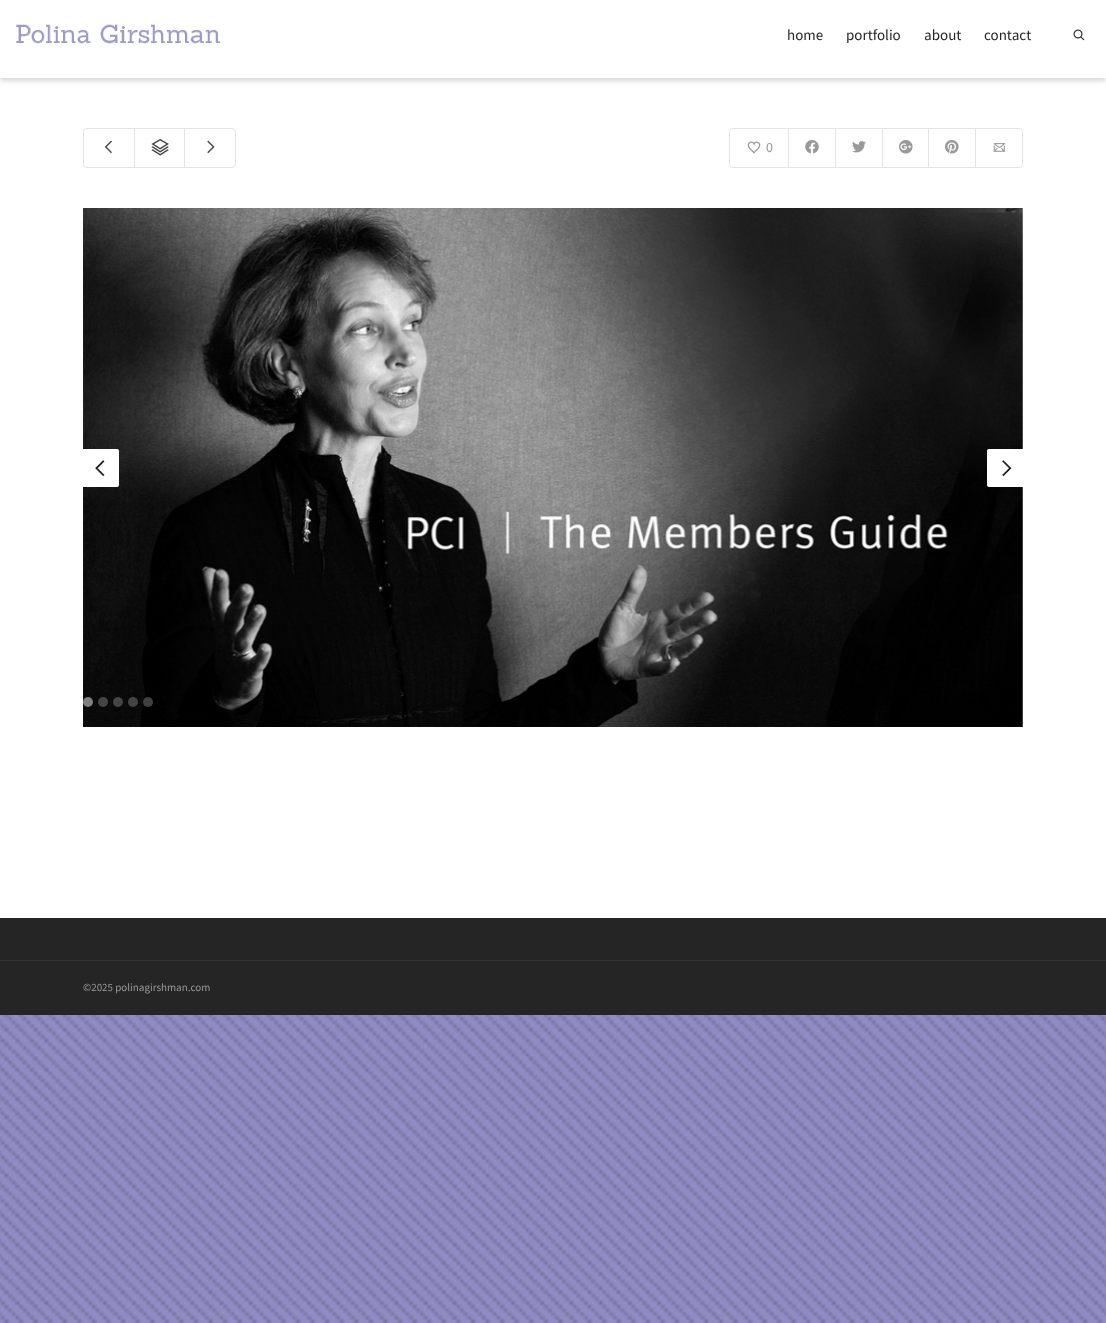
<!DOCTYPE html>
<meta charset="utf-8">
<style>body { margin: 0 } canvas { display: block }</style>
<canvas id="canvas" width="1106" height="1323"></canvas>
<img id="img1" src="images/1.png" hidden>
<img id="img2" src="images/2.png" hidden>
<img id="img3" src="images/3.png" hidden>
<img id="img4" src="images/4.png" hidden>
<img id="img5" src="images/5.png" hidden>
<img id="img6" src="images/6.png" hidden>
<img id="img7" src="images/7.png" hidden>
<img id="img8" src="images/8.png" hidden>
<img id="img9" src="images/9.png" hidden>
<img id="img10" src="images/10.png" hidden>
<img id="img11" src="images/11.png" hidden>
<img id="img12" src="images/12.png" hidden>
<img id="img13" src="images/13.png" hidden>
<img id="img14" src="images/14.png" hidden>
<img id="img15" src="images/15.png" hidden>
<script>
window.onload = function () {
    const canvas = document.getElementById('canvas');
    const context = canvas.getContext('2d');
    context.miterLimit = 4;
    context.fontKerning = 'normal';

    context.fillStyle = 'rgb(255, 255, 255)';
    context.fillRect(0, 0, 1106, 1323);
    context.drawImage(document.getElementById('img1'), 0, 1015, 1106, 308);
    context.fillStyle = 'rgba(0, 0, 0, 0.1)';
    context.filter = 'blur(2.5px)';
    context.beginPath();
    context.rect(0, 3, 1106, 78);
    context.fill();
    context.filter = 'none';
    context.fillStyle = 'rgba(0, 0, 0, 0.05)';
    context.filter = 'blur(2.5px)';
    context.beginPath();
    context.rect(0, 3, 1106, 78);
    context.fill();
    context.filter = 'none';
    context.fillStyle = 'rgb(255, 255, 255)';
    context.fillRect(0, 0, 1106, 78);
    context.drawImage(document.getElementById('img2'), 16, 24, 204, 20);
    context.drawImage(document.getElementById('img3'), 1073, 29, 12, 12);
    context.beginPath();
    context.roundRect(83.5, 128.5, 51, 39, [3.5, 0, 0, 3.5]);
    context.strokeStyle = 'rgb(228, 228, 228)';
    context.stroke();
    context.drawImage(document.getElementById('img4'), 104, 140, 8, 14);
    context.strokeRect(134.5, 128.5, 51, 39);
    context.drawImage(document.getElementById('img5'), 151, 138, 18, 18);
    context.beginPath();
    context.roundRect(184.5, 128.5, 51, 39, [0, 3.5, 3.5, 0]);
    context.fill();
    context.stroke();
    context.drawImage(document.getElementById('img6'), 207, 140, 8, 14);
    context.beginPath();
    context.roundRect(729.5, 128.5, 60, 39, [3.5, 0, 0, 3.5]);
    context.stroke();
    context.drawImage(document.getElementById('img7'), 747, 141, 14, 13);
    context.fillRect(789, 129, 1, 38);
    context.strokeRect(788.5, 128.5, 47, 39);
    context.drawImage(document.getElementById('img8'), 805, 140, 14, 14);
    context.strokeRect(835.5, 128.5, 47, 39);
    context.drawImage(document.getElementById('img9'), 852, 141, 14, 12);
    context.strokeRect(882.5, 128.5, 46, 39);
    context.drawImage(document.getElementById('img10'), 899, 140, 14, 14);
    context.strokeRect(928.5, 128.5, 47, 39);
    context.drawImage(document.getElementById('img11'), 945, 140, 14, 14);
    context.beginPath();
    context.roundRect(975.5, 128.5, 47, 39, [0, 3.5, 3.5, 0]);
    context.fill();
    context.stroke();
    context.drawImage(document.getElementById('img12'), 993, 143, 12, 9);
    context.drawImage(document.getElementById('img13'), 83, 208, 940, 519);
    context.drawImage(document.getElementById('img14'), 83, 449, 36, 38);
    context.drawImage(document.getElementById('img15'), 987, 449, 36, 38);
    context.fillStyle = 'rgb(128, 128, 128)';
    context.beginPath();
    context.arc(88, 702, 5, 0, 2 * Math.PI);
    context.fill();
    context.fillStyle = 'rgba(128, 128, 128, 0.5)';
    context.beginPath();
    context.arc(103, 702, 5, 0, 2 * Math.PI);
    context.fill();
    context.beginPath();
    context.arc(118, 702, 5, 0, 2 * Math.PI);
    context.fill();
    context.beginPath();
    context.arc(133, 702, 5, 0, 2 * Math.PI);
    context.fill();
    context.beginPath();
    context.arc(148, 702, 5, 0, 2 * Math.PI);
    context.fill();
    context.fillStyle = 'rgb(37, 37, 37)';
    context.fillRect(0, 918, 1106, 42);
    context.fillRect(0, 961, 1106, 54);
    context.fillStyle = 'rgb(51, 51, 51)';
    context.fillRect(0, 960, 1106, 1);
    context.font = '15px Source Sans Pro';
    context.fillStyle = 'rgb(37, 37, 37)';
    context.fillText('home', 787, 40);
    context.fillText('portfolio', 846, 40);
    context.fillText('about', 924, 40);
    context.fillText('contact', 984, 40);
    context.font = '14px Source Sans Pro';
    context.fillStyle = 'rgb(153, 153, 153)';
    context.fillText('0', 766, 152);
    context.font = '11px Source Sans Pro';
    context.fillText('©2025 polinagirshman.com', 83, 991);
};
</script>
